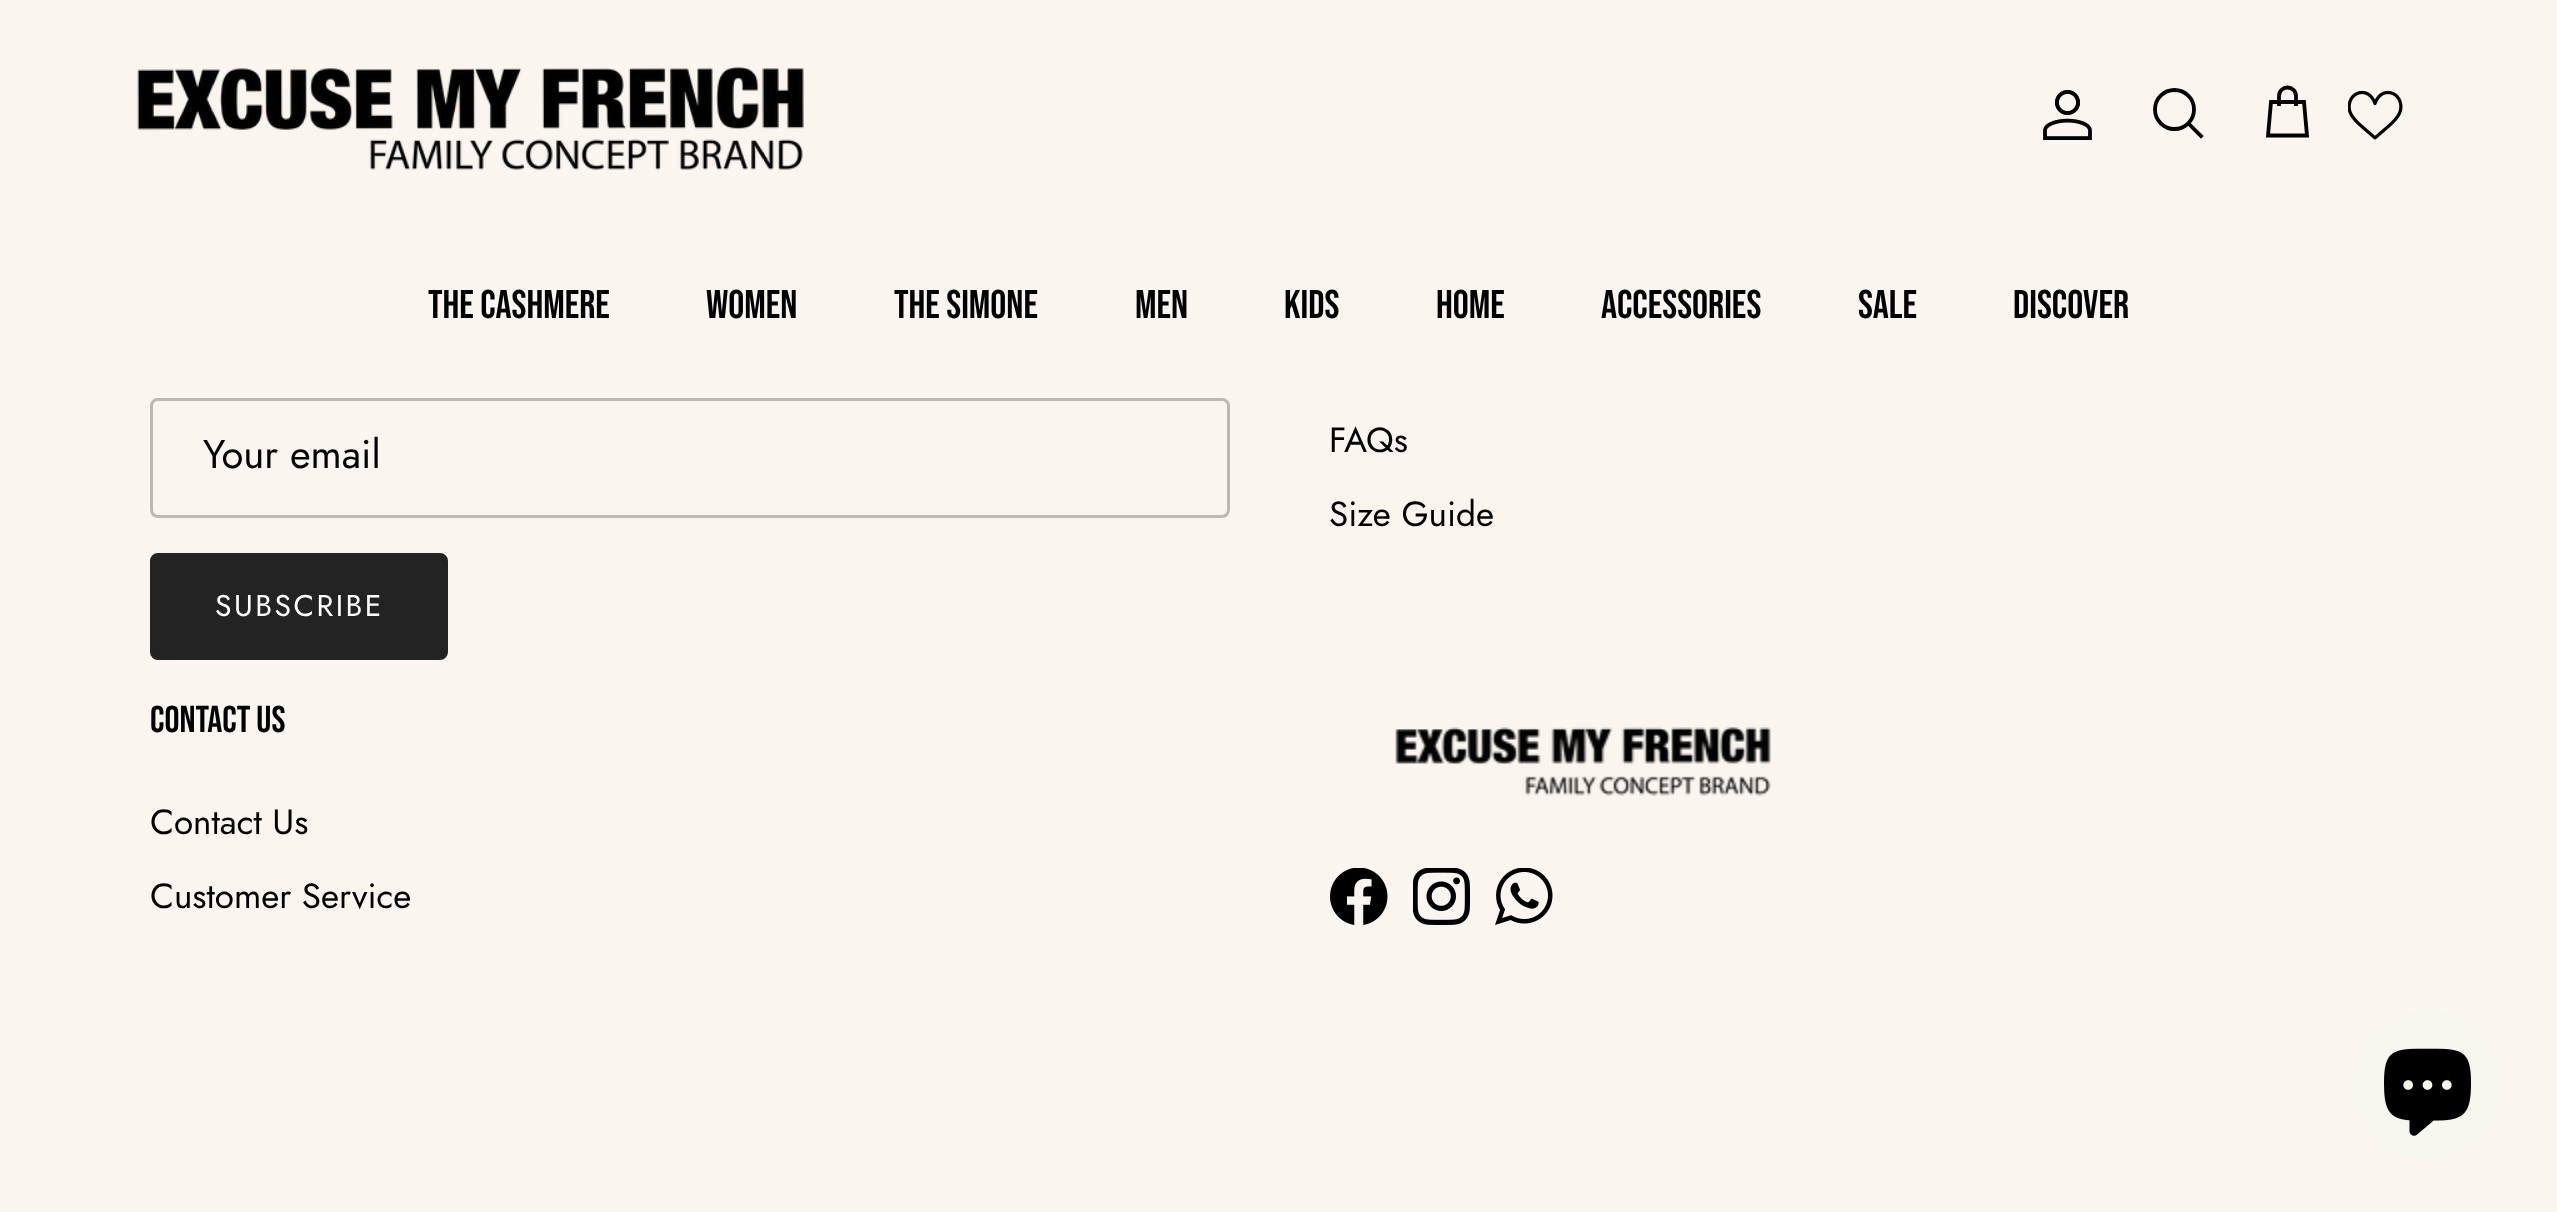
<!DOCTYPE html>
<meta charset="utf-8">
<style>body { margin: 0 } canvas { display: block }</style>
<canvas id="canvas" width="2557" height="1212"></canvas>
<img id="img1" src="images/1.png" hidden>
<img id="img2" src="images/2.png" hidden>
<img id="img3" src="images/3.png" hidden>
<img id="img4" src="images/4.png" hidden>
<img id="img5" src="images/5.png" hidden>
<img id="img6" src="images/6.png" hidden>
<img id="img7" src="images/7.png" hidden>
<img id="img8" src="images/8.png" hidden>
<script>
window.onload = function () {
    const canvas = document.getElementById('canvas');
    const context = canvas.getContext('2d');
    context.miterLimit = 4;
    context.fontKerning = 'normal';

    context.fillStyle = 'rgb(250, 245, 238)';
    context.fillRect(0, 0, 2557, 1212);
    context.drawImage(document.getElementById('img1'), 137, 66, 667, 104);
    context.drawImage(document.getElementById('img2'), 2043, 90, 49, 50);
    context.beginPath();
    context.arc(2174.5, 109.5, 19.5, 0, 2 * Math.PI);
    context.strokeStyle = 'rgb(0, 0, 0)';
    context.lineWidth = 3.8;
    context.stroke();
    context.beginPath();
    context.moveTo(2190, 125);
    context.lineTo(2201, 136);
    context.lineCap = 'square';
    context.stroke();
    context.beginPath();
    context.moveTo(2296, 106);
    context.lineTo(2296, 96);
    context.bezierCurveTo(2296, 91, 2292, 87.5, 2287.5, 87.5);
    context.bezierCurveTo(2283, 87.5, 2279, 91, 2279, 96);
    context.lineTo(2279, 106);
    context.moveTo(2271, 102);
    context.lineTo(2304, 102);
    context.lineTo(2307, 135.5);
    context.lineTo(2268, 135.5);
    context.closePath();
    context.lineCap = 'butt';
    context.stroke();
    context.drawImage(document.getElementById('img3'), 2348, 90, 55, 50);
    context.beginPath();
    context.roundRect(151.5, 399.5, 1077, 117, 6.5);
    context.strokeStyle = 'rgb(188, 184, 179)';
    context.lineWidth = 3;
    context.stroke();
    context.fillStyle = 'rgb(35, 35, 35)';
    context.beginPath();
    context.roundRect(151.5, 554.5, 295, 104, 6.5);
    context.fill();
    context.strokeStyle = 'rgb(35, 35, 35)';
    context.stroke();
    context.drawImage(document.getElementById('img4'), 1395, 727, 376, 69);
    context.drawImage(document.getElementById('img5'), 1330, 868, 58, 57);
    context.drawImage(document.getElementById('img6'), 1413, 868, 57, 57);
    context.drawImage(document.getElementById('img7'), 1495, 868, 58, 57);
    context.fillStyle = 'rgb(247, 246, 238)';
    context.beginPath();
    context.arc(2428, 1085, 75, 0, 2 * Math.PI);
    context.fill();
    context.drawImage(document.getElementById('img8'), 2384, 1048, 87, 88);
    context.font = '40px Bebas Neue';
    context.fillStyle = 'rgb(0, 0, 0)';
    context.fillText('The Cashmere', 428, 318);
    context.fillText('Women', 706, 318);
    context.fillText('The Simone', 894, 318);
    context.fillText('Men', 1135, 318);
    context.fillText('Kids', 1284, 318);
    context.fillText('Home', 1436, 318);
    context.fillText('Accessories', 1601, 318);
    context.fillText('Sale', 1858, 318);
    context.fillText('Discover', 2013, 318);
    context.font = '40px Jost';
    context.fillText('Your email', 203, 468);
    context.letterSpacing = '2.5px';
    context.font = '30px Jost';
    context.fillStyle = 'rgb(255, 255, 255)';
    context.fillText('SUBSCRIBE', 215, 616);
    context.letterSpacing = '0px';
    context.font = '35px Jost';
    context.fillStyle = 'rgb(0, 0, 0)';
    context.fillText('FAQs', 1329, 452);
    context.fillText('Size Guide', 1329, 526);
    context.font = '37.5px Bebas Neue';
    context.fillText('CONTACT US', 150, 732);
    context.font = '35px Jost';
    context.fillText('Contact Us', 150, 834);
    context.fillText('Customer Service', 150, 908);
};
</script>
